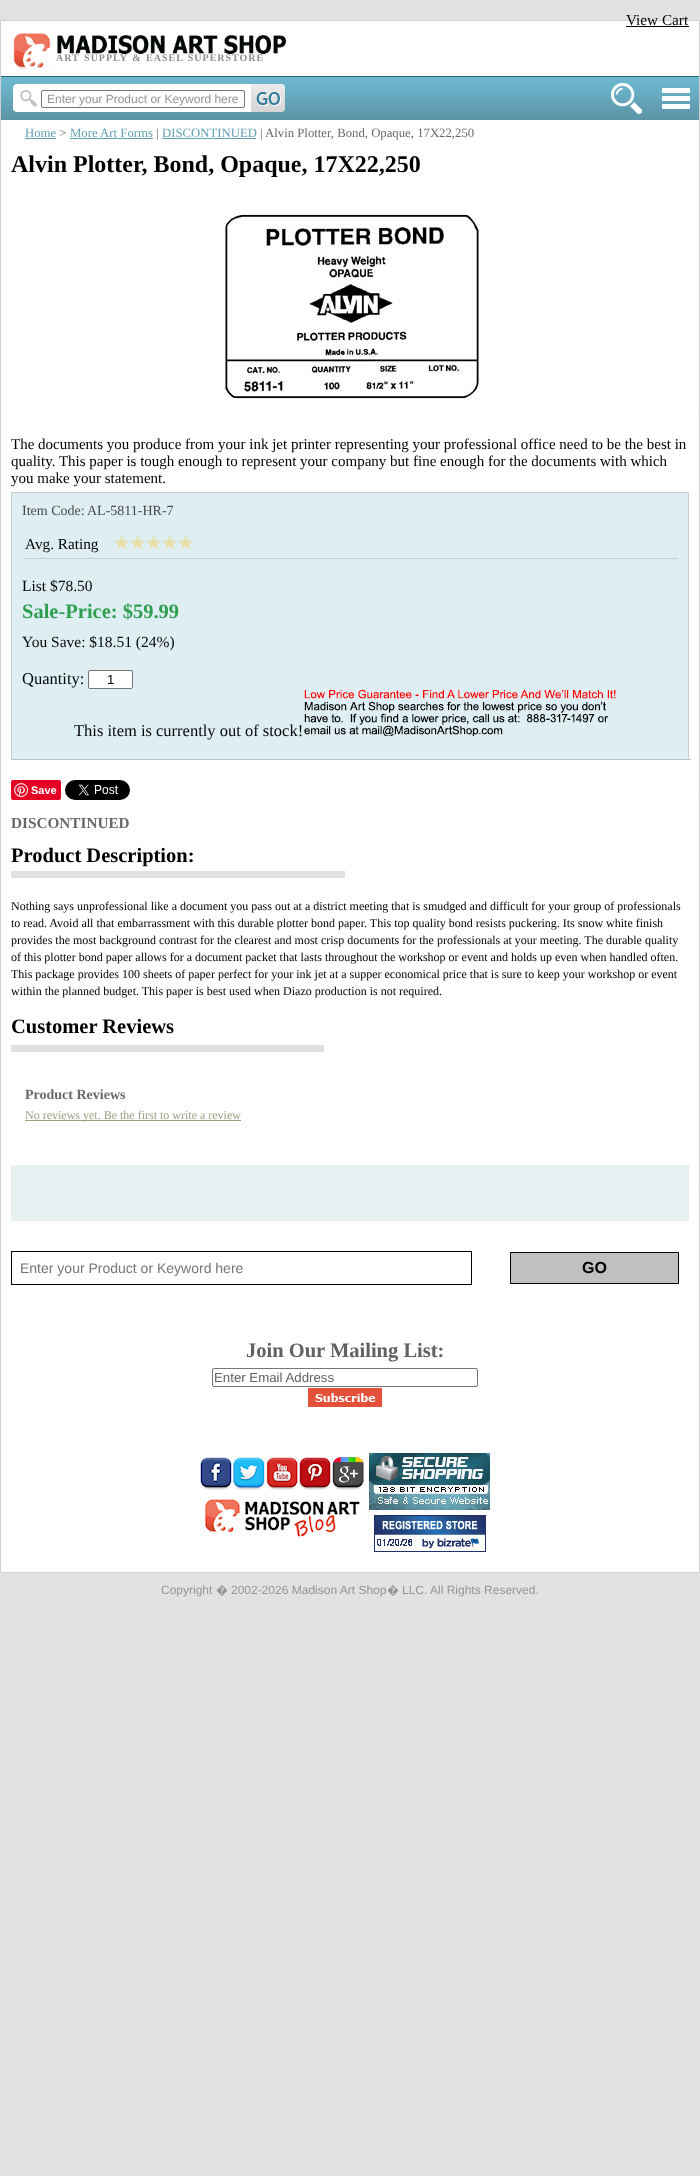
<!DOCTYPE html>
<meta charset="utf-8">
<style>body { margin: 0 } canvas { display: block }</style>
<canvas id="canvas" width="700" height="2176"></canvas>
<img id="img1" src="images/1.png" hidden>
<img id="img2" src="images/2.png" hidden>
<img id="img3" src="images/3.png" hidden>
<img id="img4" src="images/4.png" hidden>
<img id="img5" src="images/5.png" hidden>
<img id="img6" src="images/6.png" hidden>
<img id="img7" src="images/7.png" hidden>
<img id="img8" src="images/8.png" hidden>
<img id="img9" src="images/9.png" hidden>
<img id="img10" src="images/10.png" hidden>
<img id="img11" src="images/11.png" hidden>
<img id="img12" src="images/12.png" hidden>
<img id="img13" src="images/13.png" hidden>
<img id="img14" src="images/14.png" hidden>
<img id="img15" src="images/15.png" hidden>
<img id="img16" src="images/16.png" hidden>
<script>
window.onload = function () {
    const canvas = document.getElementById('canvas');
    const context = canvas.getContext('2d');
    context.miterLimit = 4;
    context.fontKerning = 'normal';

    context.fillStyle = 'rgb(226, 226, 226)';
    context.fillRect(0, 0, 700, 2176);
    context.fillStyle = 'rgb(255, 255, 255)';
    context.beginPath();
    context.rect(0.5, 20.5, 699, 1552);
    context.fill();
    context.strokeStyle = 'rgb(208, 208, 208)';
    context.stroke();
    context.fillStyle = 'rgb(0, 0, 0)';
    context.fillRect(626, 26, 63, 1);
    context.drawImage(document.getElementById('img1'), 13, 33, 274, 36);
    context.drawImage(document.getElementById('img2'), 1, 76, 698, 44);
    context.drawImage(document.getElementById('img3'), 13, 84, 238, 29);
    context.beginPath();
    context.roundRect(41.5, 90.5, 203, 17, 1.5);
    context.strokeStyle = 'rgb(118, 118, 118)';
    context.stroke();
    context.drawImage(document.getElementById('img4'), 251, 84, 34, 29);
    context.drawImage(document.getElementById('img5'), 611, 83, 31, 31);
    context.drawImage(document.getElementById('img6'), 662, 88, 28, 21);
    context.fillStyle = 'rgb(97, 159, 179)';
    context.fillRect(25, 138, 31, 1);
    context.fillRect(70, 138, 83, 1);
    context.fillRect(162, 138, 94, 1);
    context.drawImage(document.getElementById('img7'), 224, 209, 256, 192);
    context.fillStyle = 'rgb(222, 238, 243)';
    context.fillRect(12, 493, 676, 266);
    context.fillStyle = 'rgb(204, 204, 204)';
    context.fillRect(11, 492, 678, 1);
    context.fillRect(688, 492, 1, 267);
    context.fillRect(11, 492, 1, 267);
    context.fillRect(25, 558, 653, 1);
    context.drawImage(document.getElementById('img8'), 114, 535, 80, 15);
    context.fillStyle = 'rgb(255, 255, 255)';
    context.beginPath();
    context.roundRect(88.5, 670.5, 44, 18, 1.5);
    context.fill();
    context.stroke();
    context.drawImage(document.getElementById('img9'), 304, 689, 312, 47);
    context.fillStyle = 'rgb(174, 204, 204)';
    context.fillRect(11, 759, 680, 1);
    context.fillStyle = 'rgb(230, 0, 35)';
    context.beginPath();
    context.roundRect(11, 780, 50, 20, 2);
    context.fill();
    context.drawImage(document.getElementById('img10'), 14, 783, 14, 14);
    context.drawImage(document.getElementById('img11'), 65, 780, 65, 20);
    context.fillStyle = 'rgb(224, 224, 224)';
    context.fillRect(11, 871, 334, 7);
    context.fillRect(11, 1045, 313, 7);
    context.fillStyle = 'rgb(152, 162, 128)';
    context.fillRect(25, 1120, 216, 1);
    context.strokeStyle = 'rgb(232, 240, 242)';
    context.lineWidth = 10;
    context.strokeRect(16, 1170, 668, 46);
    context.fillStyle = 'rgb(232, 240, 242)';
    context.fillRect(21, 1175, 658, 36);
    context.strokeStyle = 'rgb(0, 0, 0)';
    context.lineWidth = 1;
    context.strokeRect(11.5, 1251.5, 460, 33);
    context.fillStyle = 'rgb(192, 192, 192)';
    context.beginPath();
    context.rect(510.5, 1252.5, 168, 31);
    context.fill();
    context.stroke();
    context.beginPath();
    context.roundRect(212.5, 1368.5, 265, 18, 1.5);
    context.strokeStyle = 'rgb(118, 118, 118)';
    context.stroke();
    context.drawImage(document.getElementById('img12'), 308, 1388, 74, 19);
    context.drawImage(document.getElementById('img13'), 200, 1457, 164, 33);
    context.drawImage(document.getElementById('img14'), 204, 1499, 156, 38);
    context.drawImage(document.getElementById('img15'), 369, 1453, 121, 57);
    context.drawImage(document.getElementById('img16'), 374, 1515, 112, 37);
    context.font = '15.25px Liberation Serif';
    context.fillStyle = 'rgb(0, 0, 0)';
    context.fillText('View Cart', 626, 25);
    context.letterSpacing = '1px';
    context.wordSpacing = '1px';
    context.font = 'bold 10px Liberation Serif';
    context.fillStyle = 'rgb(142, 141, 141)';
    context.fillText('ART SUPPLY & EASEL SUPERSTORE', 56, 61);
    context.letterSpacing = '0px';
    context.wordSpacing = '0px';
    context.font = '12px Liberation Sans';
    context.fillStyle = 'rgb(148, 148, 148)';
    context.fillText('Enter your Product or Keyword here', 47, 103);
    context.font = '12.75px Liberation Serif';
    context.fillStyle = 'rgb(97, 159, 179)';
    context.fillText('Home', 25, 137);
    context.fillStyle = 'rgb(106, 104, 104)';
    context.fillText('>', 59, 137);
    context.fillStyle = 'rgb(97, 159, 179)';
    context.fillText('More Art Forms', 70, 137);
    context.fillStyle = 'rgb(106, 104, 104)';
    context.fillText('|', 156, 137);
    context.fillStyle = 'rgb(97, 159, 179)';
    context.fillText('DISCONTINUED', 162, 137);
    context.fillStyle = 'rgb(106, 104, 104)';
    context.fillText('| Alvin Plotter, Bond, Opaque, 17X22,250', 260, 137);
    context.font = 'bold 24px Liberation Serif';
    context.fillStyle = 'rgb(0, 0, 0)';
    context.fillText('Alvin Plotter, Bond, Opaque, 17X22,250', 11, 172);
    context.font = '15px Liberation Serif';
    context.fillText('The documents you produce from your ink jet printer representing your professional office need to be the best in', 11, 449);
    context.fillText('quality. This paper is tough enough to represent your company but fine enough for the documents with which', 11, 466);
    context.fillText('you make your statement.', 11, 483);
    context.font = '14px Liberation Serif';
    context.fillStyle = 'rgb(73, 73, 73)';
    context.fillText('Item Code:', 22, 515);
    context.fillText('AL-5811-HR-7', 87, 515);
    context.font = '15.25px Liberation Serif';
    context.fillStyle = 'rgb(0, 0, 0)';
    context.fillText('Avg. Rating', 25, 549);
    context.font = '15.5px Liberation Serif';
    context.fillStyle = 'rgb(4, 7, 7)';
    context.fillText('List $78.50', 22, 591);
    context.font = 'bold 20.5px Liberation Serif';
    context.fillStyle = 'rgb(45, 159, 79)';
    context.fillText('Sale-Price: $59.99', 22, 618);
    context.font = '15.5px Liberation Serif';
    context.fillStyle = 'rgb(4, 7, 7)';
    context.fillText('You Save: $18.51 (24%)', 22, 647);
    context.font = '16.5px Liberation Serif';
    context.fillText('Quantity:', 22, 684);
    context.font = '13.25px Liberation Sans';
    context.fillStyle = 'rgb(0, 0, 0)';
    context.fillText('1', 107, 684);
    context.font = '16.5px Liberation Serif';
    context.fillStyle = 'rgb(4, 7, 7)';
    context.fillText('This item is currently out of stock!', 74, 736);
    context.font = 'bold 11px Liberation Sans';
    context.fillStyle = 'rgb(255, 255, 255)';
    context.fillText('Save', 31, 794);
    context.font = 'bold 15.25px Liberation Serif';
    context.fillStyle = 'rgb(106, 104, 104)';
    context.fillText('DISCONTINUED', 11, 828);
    context.font = 'bold 20.5px Liberation Serif';
    context.fillStyle = 'rgb(0, 0, 0)';
    context.fillText('Product Description:', 11, 862);
    context.font = '12px Liberation Serif';
    context.fillText('Nothing says unprofessional like a document you pass out at a district meeting that is smudged and difficult for your group of professionals', 11, 910);
    context.fillText('to read. Avoid all that embarrassment with this durable plotter bond paper. This top quality bond resists puckering. Its snow white finish', 11, 927);
    context.fillText('provides the most background contrast for the clearest and most crisp documents for the professionals at your meeting. The durable quality', 11, 944);
    context.fillText('of this plotter bond paper allows for a document packet that lasts throughout the workshop or event and holds up even when handled often.', 11, 961);
    context.fillText('This package provides 100 sheets of paper perfect for your ink jet at a supper economical price that is sure to keep your workshop or event', 11, 978);
    context.fillText('within the planned budget. This paper is best used when Diazo production is not required.', 11, 995);
    context.font = 'bold 20.5px Liberation Serif';
    context.fillText('Customer Reviews', 11, 1033);
    context.font = 'bold 14px Liberation Serif';
    context.fillStyle = 'rgb(106, 104, 104)';
    context.fillText('Product Reviews', 25, 1099);
    context.font = '12px Liberation Serif';
    context.fillStyle = 'rgb(152, 162, 128)';
    context.fillText('No reviews yet. Be the first to write a review', 25, 1119);
    context.font = '14px Liberation Sans';
    context.fillStyle = 'rgb(117, 117, 117)';
    context.fillText('Enter your Product or Keyword here', 20, 1273);
    context.font = 'bold 16px Liberation Sans';
    context.fillStyle = 'rgb(0, 0, 0)';
    context.fillText('GO', 582, 1273);
    context.font = 'bold 20.5px Liberation Serif';
    context.fillStyle = 'rgb(97, 97, 97)';
    context.fillText('Join Our Mailing List:', 246, 1357);
    context.font = '13.25px Liberation Sans';
    context.fillText('Enter Email Address', 214, 1382);
    context.font = '12px Liberation Sans';
    context.fillStyle = 'rgb(148, 148, 148)';
    context.fillText('Copyright', 161, 1594);
    context.font = '12px Noto Sans';
    context.fillText('�', 216, 1594);
    context.font = '12px Liberation Sans';
    context.fillText('2002-2026 Madison Art Shop', 231, 1594);
    context.font = '12px Noto Sans';
    context.fillText('�', 387, 1594);
    context.font = '12px Liberation Sans';
    context.fillText('LLC. All Rights Reserved.', 402, 1594);
};
</script>
